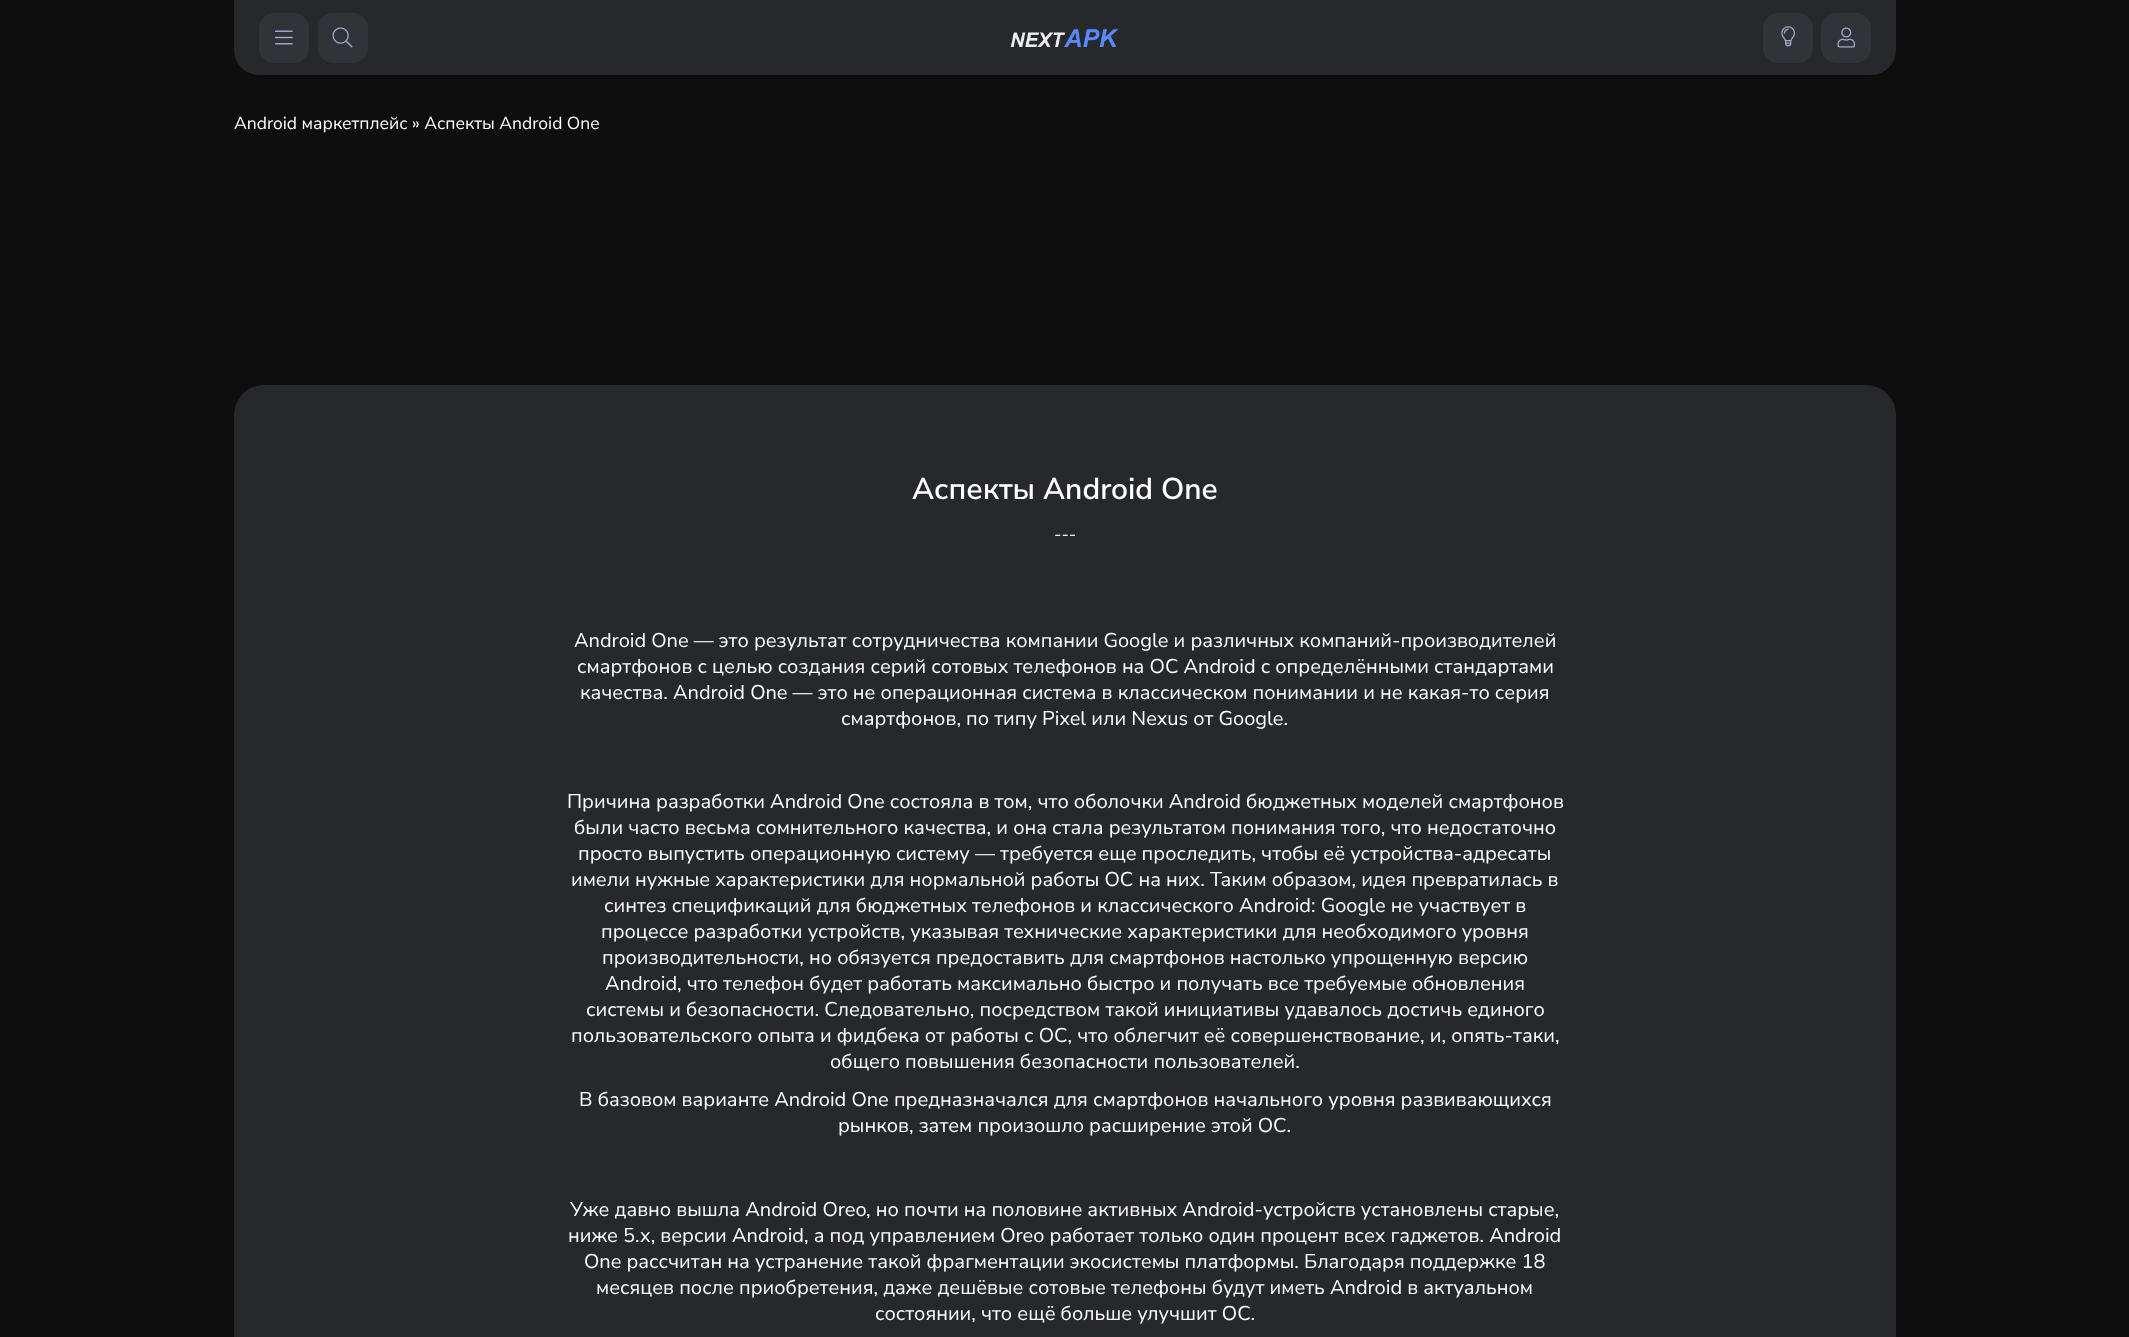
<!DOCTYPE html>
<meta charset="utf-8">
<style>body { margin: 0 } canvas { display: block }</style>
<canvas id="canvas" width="2129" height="1337"></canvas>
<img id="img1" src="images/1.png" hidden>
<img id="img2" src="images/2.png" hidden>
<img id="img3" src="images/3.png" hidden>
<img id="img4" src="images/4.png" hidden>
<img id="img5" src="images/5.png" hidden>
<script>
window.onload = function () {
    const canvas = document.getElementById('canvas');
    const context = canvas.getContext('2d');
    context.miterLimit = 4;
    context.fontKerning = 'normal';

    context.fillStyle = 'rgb(14, 14, 15)';
    context.fillRect(0, 0, 2129, 1337);
    context.fillStyle = 'rgb(38, 40, 43)';
    context.beginPath();
    context.roundRect(234, 0, 1662, 75, [0, 0, 25, 25]);
    context.fill();
    context.fillStyle = 'rgb(48, 51, 55)';
    context.beginPath();
    context.roundRect(259, 13, 50, 50, 15);
    context.fill();
    context.drawImage(document.getElementById('img1'), 275, 30, 18, 15);
    context.beginPath();
    context.roundRect(318, 13, 50, 50, 15);
    context.fill();
    context.drawImage(document.getElementById('img2'), 332, 27, 21, 21);
    context.drawImage(document.getElementById('img3'), 1010, 28, 109, 19);
    context.beginPath();
    context.roundRect(1763, 13, 50, 50, 15);
    context.fill();
    context.drawImage(document.getElementById('img4'), 1781, 26, 14, 21);
    context.beginPath();
    context.roundRect(1821, 13, 50, 50, 15);
    context.fill();
    context.drawImage(document.getElementById('img5'), 1837, 27, 18, 21);
    context.fillStyle = 'rgb(38, 40, 43)';
    context.beginPath();
    context.roundRect(234, 385, 1662, 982, 30);
    context.fill();
    context.font = '17.5px Nunito Sans';
    context.fillStyle = 'rgb(255, 255, 255)';
    context.fillText('Android маркетплейс » Аспекты Android One', 234, 129);
    context.font = '600 30px Nunito Sans';
    context.fillText('Аспекты Android One', 912, 499);
    context.font = '17.5px Nunito Sans';
    context.fillText('---', 1054, 540);
    context.font = '20px Nunito Sans';
    context.fillText('Android One — это результат сотрудничества компании Google и различных компаний-производителей', 574, 647);
    context.fillText('смартфонов с целью создания серий сотовых телефонов на ОС Android с определёнными стандартами', 577, 673);
    context.fillText('качества. Android One — это не операционная система в классическом понимании и не какая-то серия', 580, 699);
    context.fillText('смартфонов, по типу Pixel или Nexus от Google.', 841, 725);
    context.fillText('Причина разработки Android One состояла в том, что оболочки Android бюджетных моделей смартфонов', 567, 808);
    context.fillText('были часто весьма сомнительного качества, и она стала результатом понимания того, что недостаточно', 574, 834);
    context.fillText('просто выпустить операционную систему — требуется еще проследить, чтобы её устройства-адресаты', 578, 860);
    context.fillText('имели нужные характеристики для нормальной работы ОС на них. Таким образом, идея превратилась в', 571, 886);
    context.fillText('синтез спецификаций для бюджетных телефонов и классического Android: Google не участвует в', 604, 912);
    context.fillText('процессе разработки устройств, указывая технические характеристики для необходимого уровня', 601, 938);
    context.fillText('производительности, но обязуется предоставить для смартфонов настолько упрощенную версию', 602, 964);
    context.fillText('Android, что телефон будет работать максимально быстро и получать все требуемые обновления', 605, 990);
    context.fillText('системы и безопасности. Следовательно, посредством такой инициативы удавалось достичь единого', 586, 1016);
    context.fillText('пользовательского опыта и фидбека от работы с ОС, что облегчит её совершенствование, и, опять-таки,', 571, 1042);
    context.fillText('общего повышения безопасности пользователей.', 830, 1068);
    context.fillText('В базовом варианте Android One предназначался для смартфонов начального уровня развивающихся', 579, 1106);
    context.fillText('рынков, затем произошло расширение этой ОС.', 838, 1132);
    context.fillText('Уже давно вышла Android Oreo, но почти на половине активных Android-устройств установлены старые,', 570, 1216);
    context.fillText('ниже 5.x, версии Android, а под управлением Oreo работает только один процент всех гаджетов. Android', 568, 1242);
    context.fillText('One рассчитан на устранение такой фрагментации экосистемы платформы. Благодаря поддержке 18', 584, 1268);
    context.fillText('месяцев после приобретения, даже дешёвые сотовые телефоны будут иметь Android в актуальном', 596, 1294);
    context.fillText('состоянии, что ещё больше улучшит ОС.', 875, 1320);
};
</script>
